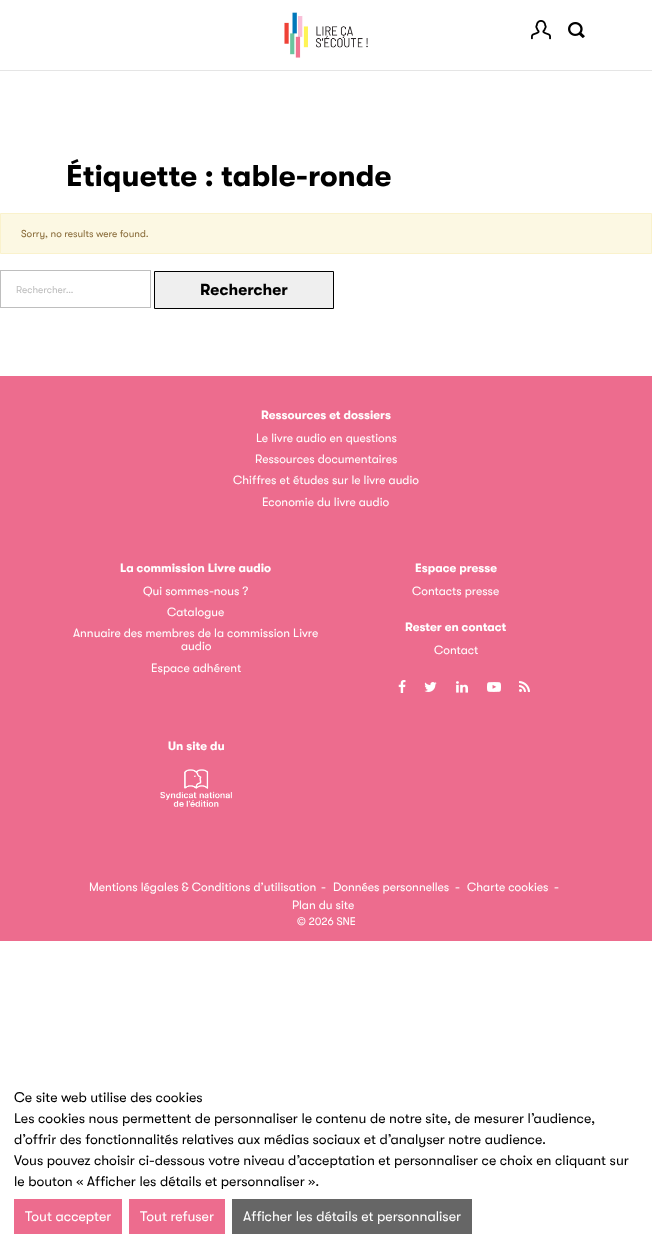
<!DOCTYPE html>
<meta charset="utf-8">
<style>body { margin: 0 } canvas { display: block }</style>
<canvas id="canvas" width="652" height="1253"></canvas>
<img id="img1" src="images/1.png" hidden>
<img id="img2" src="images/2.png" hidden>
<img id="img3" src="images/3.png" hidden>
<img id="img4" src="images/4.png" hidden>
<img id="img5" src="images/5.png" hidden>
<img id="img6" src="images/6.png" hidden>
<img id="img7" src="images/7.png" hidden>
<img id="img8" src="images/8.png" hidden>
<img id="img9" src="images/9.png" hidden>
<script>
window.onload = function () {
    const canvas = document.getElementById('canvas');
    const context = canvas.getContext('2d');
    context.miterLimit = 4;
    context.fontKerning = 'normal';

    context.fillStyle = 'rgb(255, 255, 255)';
    context.fillRect(0, 0, 652, 1253);
    context.fillStyle = 'rgb(229, 229, 229)';
    context.fillRect(0, 70, 652, 1);
    context.drawImage(document.getElementById('img1'), 284, 12, 84, 46);
    context.drawImage(document.getElementById('img2'), 531, 20, 20, 20);
    context.drawImage(document.getElementById('img3'), 568, 22, 17, 16);
    context.fillStyle = 'rgb(252, 248, 227)';
    context.beginPath();
    context.rect(0.5, 213.5, 651, 40);
    context.fill();
    context.strokeStyle = 'rgb(250, 242, 204)';
    context.stroke();
    context.strokeStyle = 'rgb(190, 190, 190)';
    context.strokeRect(0.5, 270.5, 150, 37);
    context.fillStyle = 'rgb(239, 239, 239)';
    context.beginPath();
    context.rect(154.5, 271.5, 179, 37);
    context.fill();
    context.strokeStyle = 'rgb(0, 0, 0)';
    context.stroke();
    context.fillStyle = 'rgb(237, 108, 142)';
    context.fillRect(0, 376, 652, 565);
    context.drawImage(document.getElementById('img4'), 398, 680, 8, 13);
    context.drawImage(document.getElementById('img5'), 424, 682, 13, 10);
    context.drawImage(document.getElementById('img6'), 456, 681, 12, 12);
    context.drawImage(document.getElementById('img7'), 487, 682, 14, 10);
    context.drawImage(document.getElementById('img8'), 519, 681, 11, 11);
    context.drawImage(document.getElementById('img9'), 160, 769, 72, 38);
    context.fillRect(14, 1199, 108, 35);
    context.fillRect(129, 1199, 96, 35);
    context.fillStyle = 'rgb(102, 102, 102)';
    context.fillRect(232, 1199, 240, 35);
    context.font = 'bold 30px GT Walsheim';
    context.fillStyle = 'rgb(0, 0, 0)';
    context.fillText('Étiquette : table-ronde', 66, 186);
    context.font = '10px GT Walsheim';
    context.fillStyle = 'rgb(138, 109, 59)';
    context.fillText('Sorry, no results were found.', 21, 237);
    context.fillStyle = 'rgb(190, 190, 190)';
    context.fillText('Rechercher…', 16, 293);
    context.font = 'bold 16px GT Walsheim';
    context.fillStyle = 'rgb(0, 0, 0)';
    context.fillText('Rechercher', 200, 295);
    context.font = 'bold 12px GT Walsheim';
    context.fillStyle = 'rgb(255, 255, 255)';
    context.fillText('Ressources et dossiers', 261, 419);
    context.font = '12px GT Walsheim';
    context.fillText('Le livre audio en questions', 256, 442);
    context.fillText('Ressources documentaires', 255, 463);
    context.fillText('Chiffres et études sur le livre audio', 233, 484);
    context.fillText('Economie du livre audio', 262, 506);
    context.font = 'bold 12px GT Walsheim';
    context.fillText('La commission Livre audio', 120, 572);
    context.font = '12px GT Walsheim';
    context.fillText('Qui sommes-nous ?', 143, 595);
    context.fillText('Catalogue', 167, 616);
    context.fillText('Annuaire des membres de la commission Livre', 73, 637);
    context.fillText('audio', 181, 650);
    context.fillText('Espace adhérent', 151, 672);
    context.font = 'bold 12px GT Walsheim';
    context.fillText('Espace presse', 415, 572);
    context.font = '12px GT Walsheim';
    context.fillText('Contacts presse', 412, 595);
    context.font = 'bold 12px GT Walsheim';
    context.fillText('Rester en contact', 405, 631);
    context.font = '12px GT Walsheim';
    context.fillText('Contact', 434, 654);
    context.font = 'bold 12px GT Walsheim';
    context.fillText('Un site du', 168, 750);
    context.font = '12px GT Walsheim';
    context.fillText('Mentions légales & Conditions d’utilisation', 89, 891);
    context.fillText('-', 321, 891);
    context.fillText('Données personnelles', 333, 891);
    context.fillText('-', 455, 891);
    context.fillText('Charte cookies', 467, 891);
    context.fillText('-', 554, 891);
    context.fillText('Plan du site', 292, 909);
    context.font = '11px GT Walsheim';
    context.fillText('© 2026 SNE', 297, 925);
    context.font = '14px GT Walsheim';
    context.fillStyle = 'rgb(0, 0, 0)';
    context.fillText('Ce site web utilise des cookies', 14, 1102);
    context.fillText('Les cookies nous permettent de personnaliser le contenu de notre site, de mesurer l’audience,', 14, 1123);
    context.fillText('d’offrir des fonctionnalités relatives aux médias sociaux et d’analyser notre audience.', 14, 1144);
    context.fillText('Vous pouvez choisir ci-dessous votre niveau d’acceptation et personnaliser ce choix en cliquant sur', 14, 1165);
    context.fillText('le bouton « Afficher les détails et personnaliser ».', 14, 1186);
    context.fillStyle = 'rgb(255, 255, 255)';
    context.fillText('Tout accepter', 25, 1221);
    context.fillText('Tout refuser', 140, 1221);
    context.fillText('Afficher les détails et personnaliser', 243, 1221);
};
</script>
